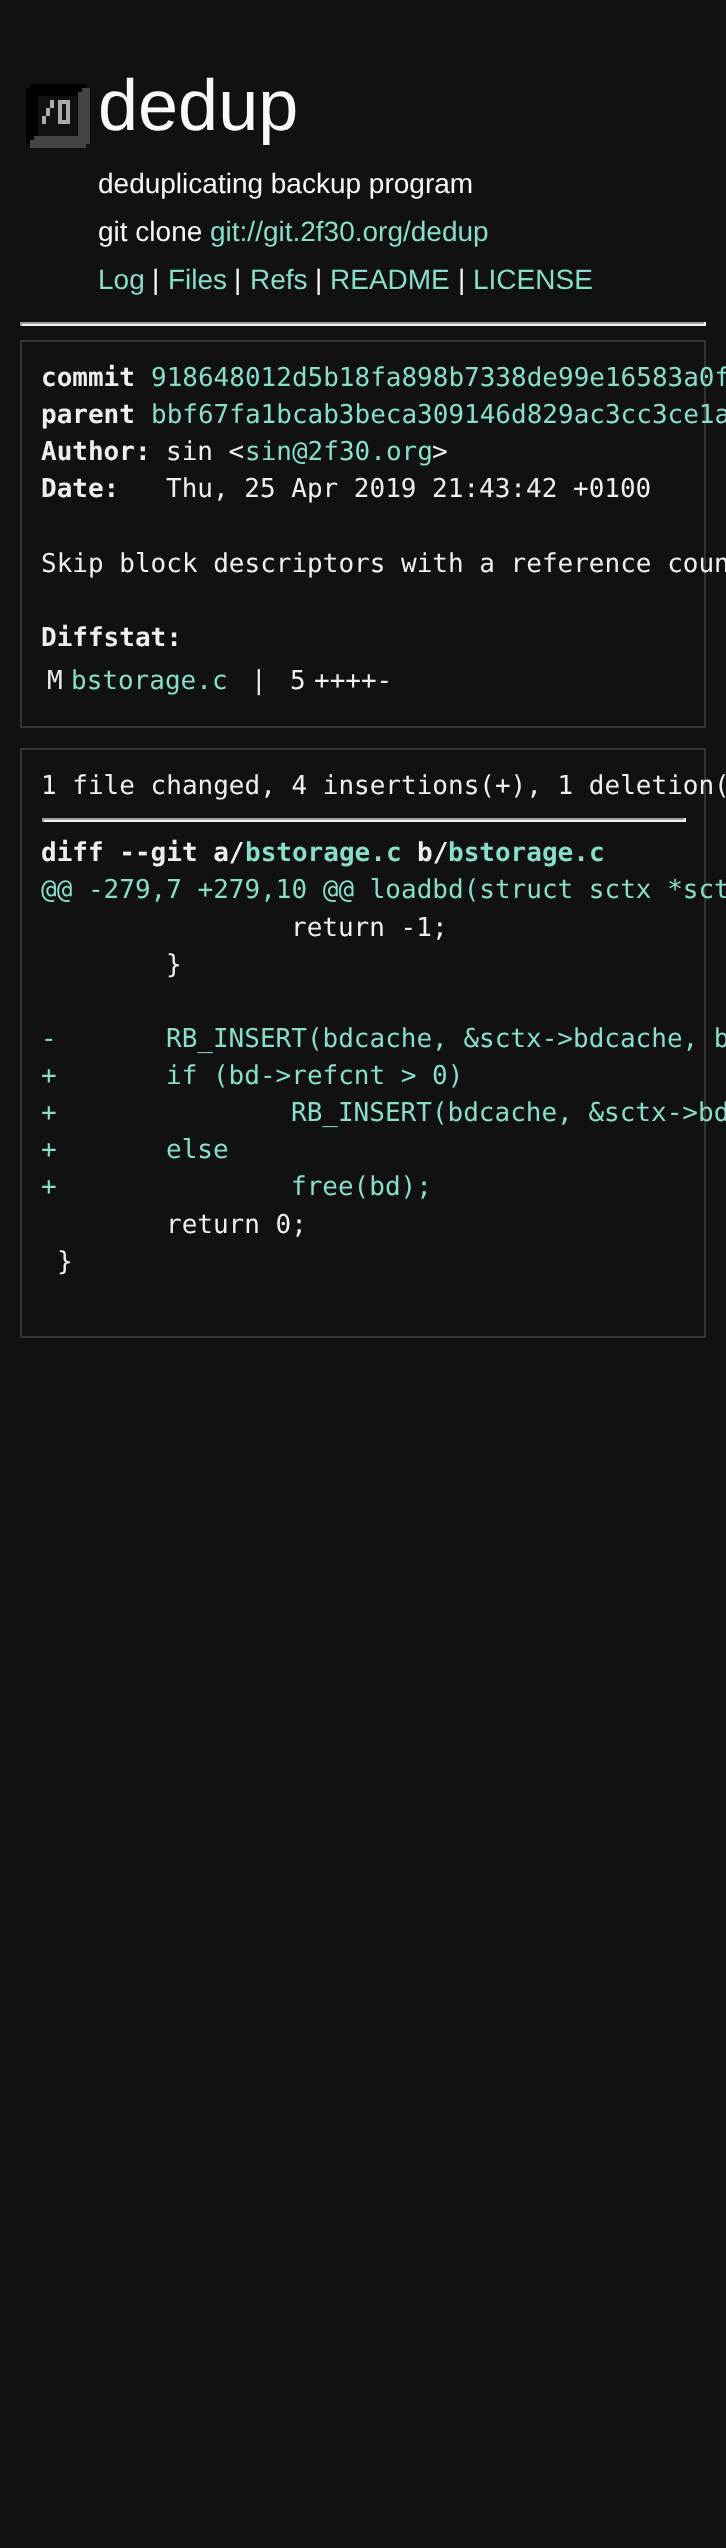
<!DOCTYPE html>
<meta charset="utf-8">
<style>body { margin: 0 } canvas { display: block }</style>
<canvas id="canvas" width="726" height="2548"></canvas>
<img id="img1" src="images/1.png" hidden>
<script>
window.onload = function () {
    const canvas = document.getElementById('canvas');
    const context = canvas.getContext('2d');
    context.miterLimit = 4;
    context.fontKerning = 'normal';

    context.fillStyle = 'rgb(17, 17, 17)';
    context.fillRect(0, 0, 726, 2548);
    context.drawImage(document.getElementById('img1'), 26, 84, 64, 64);
    context.fillStyle = 'rgb(159, 159, 159)';
    context.fillRect(20, 322, 686, 2);
    context.fillStyle = 'rgb(238, 238, 238)';
    context.fillRect(704, 322, 2, 4);
    context.fillRect(20, 324, 686, 2);
    context.fillStyle = 'rgb(159, 159, 159)';
    context.fillRect(20, 322, 2, 4);
    context.strokeStyle = 'rgb(51, 51, 51)';
    context.lineWidth = 2;
    context.strokeRect(21, 341, 684, 386);
    context.strokeRect(21, 749, 684, 588);
    context.fillRect(42, 818, 644, 2);
    context.fillStyle = 'rgb(238, 238, 238)';
    context.fillRect(684, 818, 2, 4);
    context.fillRect(42, 820, 644, 2);
    context.fillStyle = 'rgb(159, 159, 159)';
    context.fillRect(42, 818, 2, 4);
    context.font = '72px Liberation Sans';
    context.fillStyle = 'rgb(248, 248, 248)';
    context.fillText('dedup', 98, 130);
    context.font = '28px Liberation Sans';
    context.fillText('deduplicating backup program', 98, 193);
    context.fillText('git clone', 98, 241);
    context.fillStyle = 'rgb(136, 221, 204)';
    context.fillText('git://git.2f30.org/dedup', 210, 241);
    context.fillText('Log', 98, 289);
    context.fillStyle = 'rgb(248, 248, 248)';
    context.fillText('|', 152, 289);
    context.fillStyle = 'rgb(136, 221, 204)';
    context.fillText('Files', 168, 289);
    context.fillStyle = 'rgb(248, 248, 248)';
    context.fillText('|', 234, 289);
    context.fillStyle = 'rgb(136, 221, 204)';
    context.fillText('Refs', 250, 289);
    context.fillStyle = 'rgb(248, 248, 248)';
    context.fillText('|', 315, 289);
    context.fillStyle = 'rgb(136, 221, 204)';
    context.fillText('README', 330, 289);
    context.fillStyle = 'rgb(248, 248, 248)';
    context.fillText('|', 458, 289);
    context.fillStyle = 'rgb(136, 221, 204)';
    context.fillText('LICENSE', 473, 289);
    context.font = 'bold 26px DejaVu Sans Mono';
    context.fillStyle = 'rgb(238, 238, 238)';
    context.fillText('commit', 41, 386);
    context.font = '26px DejaVu Sans Mono';
    context.fillStyle = 'rgb(136, 221, 204)';
    context.fillText('918648012d5b18fa898b7338de99e16583a0f', 151, 386);
    context.font = 'bold 26px DejaVu Sans Mono';
    context.fillStyle = 'rgb(238, 238, 238)';
    context.fillText('parent', 41, 423);
    context.font = '26px DejaVu Sans Mono';
    context.fillStyle = 'rgb(136, 221, 204)';
    context.fillText('bbf67fa1bcab3beca309146d829ac3cc3ce1a', 151, 423);
    context.font = 'bold 26px DejaVu Sans Mono';
    context.fillStyle = 'rgb(238, 238, 238)';
    context.fillText('Author:', 41, 460);
    context.font = '26px DejaVu Sans Mono';
    context.fillText('sin <', 166, 460);
    context.fillStyle = 'rgb(136, 221, 204)';
    context.fillText('sin@2f30.org', 245, 460);
    context.fillStyle = 'rgb(238, 238, 238)';
    context.fillText('>', 432, 460);
    context.font = 'bold 26px DejaVu Sans Mono';
    context.fillText('Date:', 41, 497);
    context.font = '26px DejaVu Sans Mono';
    context.fillText('Thu, 25 Apr 2019 21:43:42 +0100', 166, 497);
    context.fillText('Skip block descriptors with a reference coun', 41, 572);
    context.font = 'bold 26px DejaVu Sans Mono';
    context.fillText('Diffstat:', 41, 646);
    context.font = '26px DejaVu Sans Mono';
    context.fillText('M', 47, 689);
    context.fillStyle = 'rgb(136, 221, 204)';
    context.fillText('bstorage.c', 71, 689);
    context.fillStyle = 'rgb(238, 238, 238)';
    context.fillText('|', 251, 689);
    context.fillText('5', 290, 689);
    context.fillText('++++-', 314, 689);
    context.fillText('1 file changed, 4 insertions(+), 1 deletion(', 41, 794);
    context.font = 'bold 26px DejaVu Sans Mono';
    context.fillText('diff --git a/', 41, 861);
    context.fillStyle = 'rgb(136, 221, 204)';
    context.fillText('bstorage.c', 245, 861);
    context.fillStyle = 'rgb(238, 238, 238)';
    context.fillText('b/', 417, 861);
    context.fillStyle = 'rgb(136, 221, 204)';
    context.fillText('bstorage.c', 448, 861);
    context.font = '26px DejaVu Sans Mono';
    context.fillText('@@ -279,7 +279,10 @@ loadbd(struct sctx *sct', 41, 898);
    context.fillStyle = 'rgb(238, 238, 238)';
    context.fillText('return -1;', 291, 936);
    context.fillText('}', 166, 973);
    context.fillStyle = 'rgb(136, 221, 204)';
    context.fillText('-', 41, 1047);
    context.fillText('RB_INSERT(bdcache, &sctx->bdcache, b', 166, 1047);
    context.fillText('+', 41, 1084);
    context.fillText('if (bd->refcnt > 0)', 166, 1084);
    context.fillText('+', 41, 1121);
    context.fillText('RB_INSERT(bdcache, &sctx->bd', 291, 1121);
    context.fillText('+', 41, 1158);
    context.fillText('else', 166, 1158);
    context.fillText('+', 41, 1195);
    context.fillText('free(bd);', 291, 1195);
    context.fillStyle = 'rgb(238, 238, 238)';
    context.fillText('return 0;', 166, 1233);
    context.fillText('}', 57, 1270);
};
</script>
